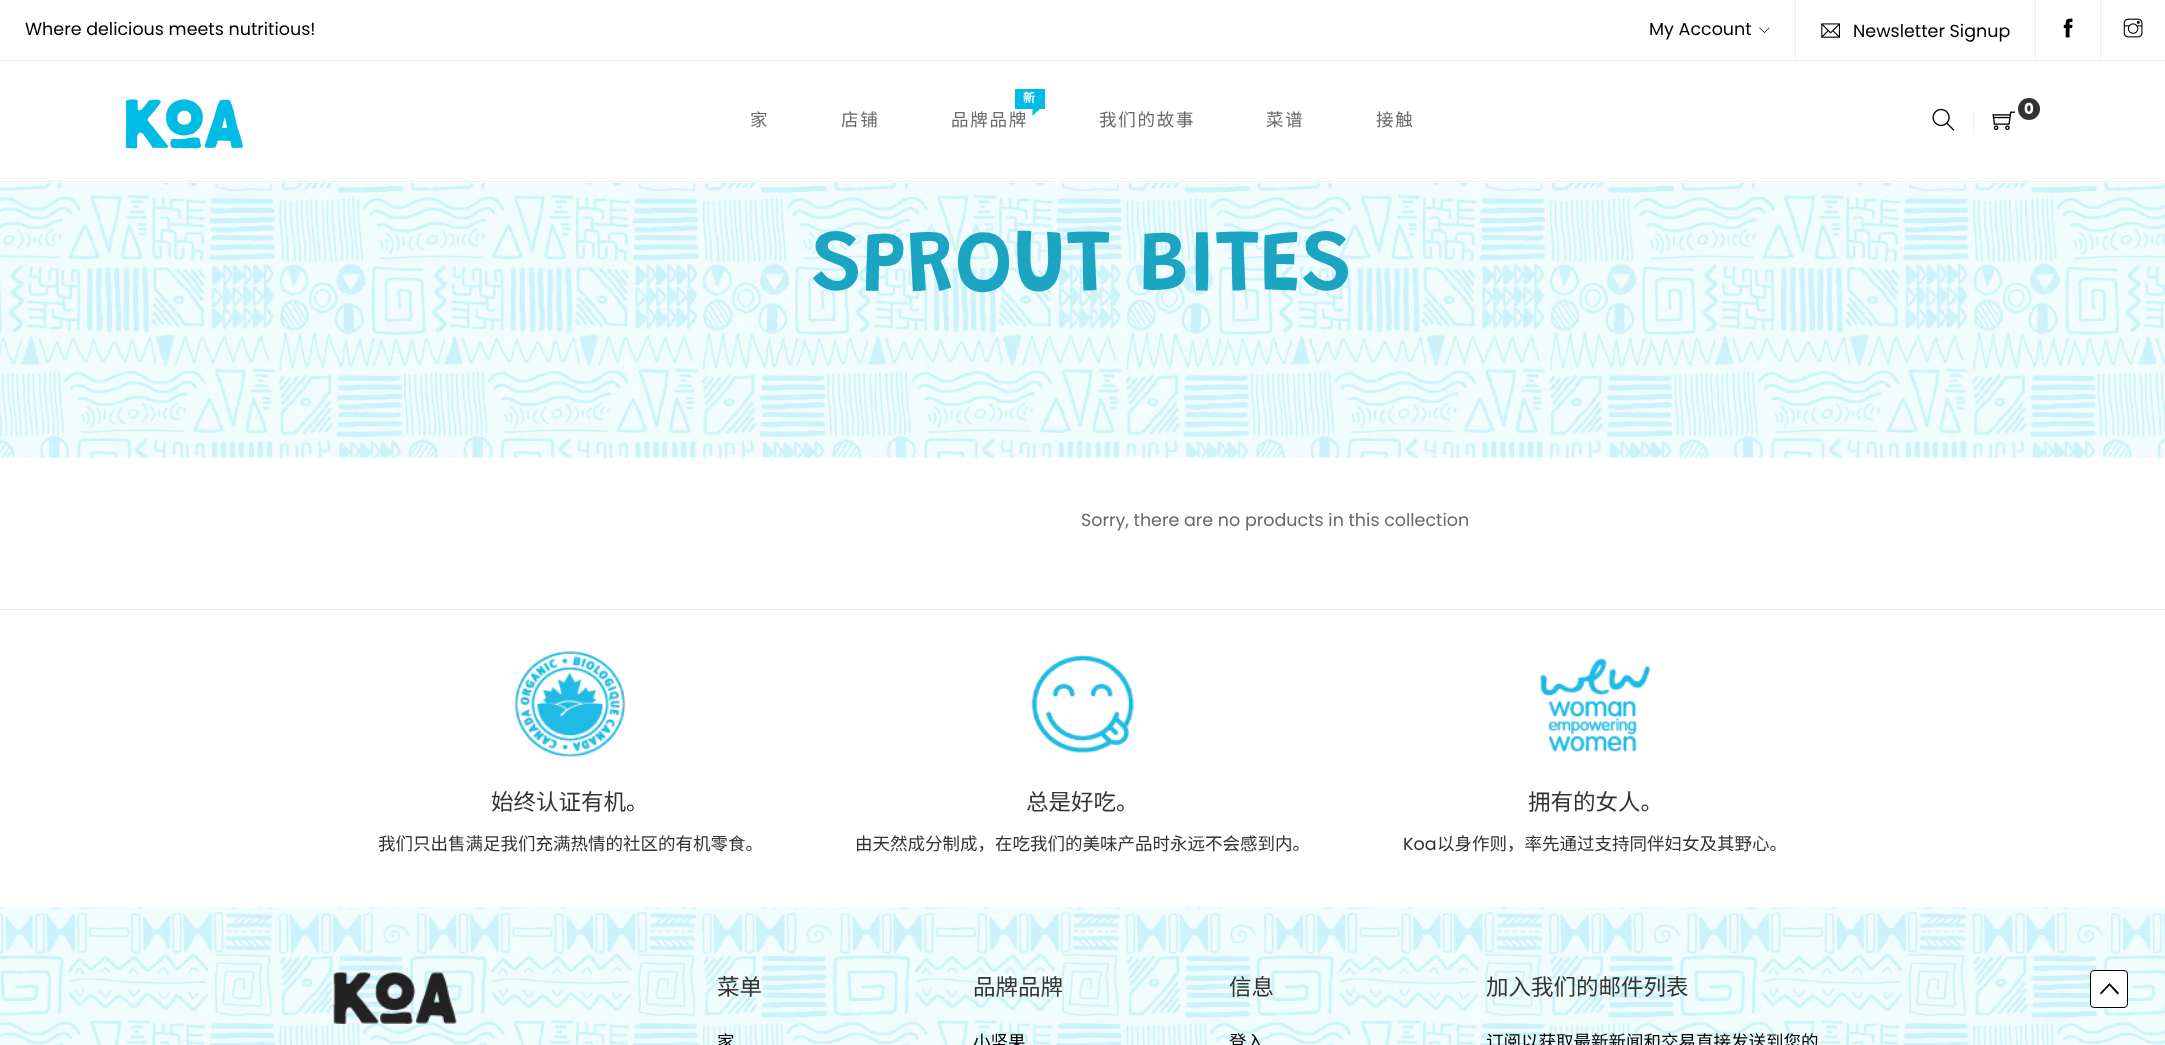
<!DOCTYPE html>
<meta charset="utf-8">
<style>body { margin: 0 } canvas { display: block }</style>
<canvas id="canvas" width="2165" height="1045"></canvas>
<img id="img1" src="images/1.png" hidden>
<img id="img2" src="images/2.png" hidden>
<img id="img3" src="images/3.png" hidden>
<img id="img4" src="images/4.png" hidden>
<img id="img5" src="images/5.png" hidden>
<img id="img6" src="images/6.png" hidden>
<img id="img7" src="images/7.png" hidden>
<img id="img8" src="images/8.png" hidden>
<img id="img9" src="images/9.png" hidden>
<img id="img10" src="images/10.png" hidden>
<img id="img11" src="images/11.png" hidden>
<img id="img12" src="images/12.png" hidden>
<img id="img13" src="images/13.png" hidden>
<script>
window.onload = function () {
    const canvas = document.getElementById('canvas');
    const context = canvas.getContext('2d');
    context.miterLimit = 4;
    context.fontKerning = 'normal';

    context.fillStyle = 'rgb(255, 255, 255)';
    context.fillRect(0, 0, 2165, 1045);
    context.fillStyle = 'rgb(238, 238, 238)';
    context.fillRect(0, 181, 2165, 1);
    context.fillRect(0, 60, 2165, 1);
    context.drawImage(document.getElementById('img1'), 1759, 27, 11, 6);
    context.fillRect(1795, 0, 1, 59);
    context.drawImage(document.getElementById('img2'), 1821, 23, 19, 15);
    context.fillRect(2035, 0, 1, 60);
    context.drawImage(document.getElementById('img3'), 2063, 18, 10, 20);
    context.fillRect(2100, 0, 1, 60);
    context.drawImage(document.getElementById('img4'), 2123, 18, 20, 20);
    context.drawImage(document.getElementById('img5'), 125, 99, 118, 50);
    context.fillStyle = 'rgb(0, 188, 228)';
    context.fillRect(1015, 89, 30, 20);
    context.beginPath();
    context.moveTo(1032.5, 109);
    context.lineTo(1040, 109);
    context.lineTo(1036, 112.5);
    context.closePath();
    context.fill();
    context.beginPath();
    context.moveTo(1032.5, 116);
    context.lineTo(1032.5, 109);
    context.lineTo(1036, 112.5);
    context.closePath();
    context.fill();
    context.drawImage(document.getElementById('img6'), 1932, 108, 23, 23);
    context.fillStyle = 'rgb(238, 238, 238)';
    context.fillRect(1973, 111, 1, 23);
    context.fillStyle = 'rgb(51, 51, 51)';
    context.beginPath();
    context.arc(2029, 109, 11, 0, 2 * Math.PI);
    context.fill();
    context.drawImage(document.getElementById('img7'), 1992, 111, 23, 20);
    context.drawImage(document.getElementById('img8'), 0, 183, 2165, 275);
    context.fillStyle = 'rgb(238, 238, 238)';
    context.fillRect(0, 609, 2165, 1);
    context.drawImage(document.getElementById('img9'), 514, 651, 112, 106);
    context.drawImage(document.getElementById('img10'), 1031, 655, 103, 98);
    context.drawImage(document.getElementById('img11'), 1539, 658, 112, 94);
    context.drawImage(document.getElementById('img12'), 0, 907, 2165, 138);
    context.drawImage(document.getElementById('img13'), 333, 972, 124, 52);
    context.fillStyle = 'rgb(255, 255, 255)';
    context.beginPath();
    context.roundRect(2090.5, 970.5, 37, 37, 3.5);
    context.fill();
    context.strokeStyle = 'rgb(0, 0, 0)';
    context.stroke();
    context.fillStyle = 'rgb(0, 0, 0)';
    context.beginPath();
    context.moveTo(2117.5, 994.5);
    context.lineTo(2109.5, 985.5);
    context.lineTo(2101, 994.5);
    context.lineTo(2100, 993);
    context.lineTo(2109.5, 983);
    context.lineTo(2119, 993);
    context.closePath();
    context.fill();
    context.font = '17.5px Poppins';
    context.fillText('Where delicious meets nutritious!', 25, 35);
    context.fillText('My Account', 1649, 35);
    context.fillText('Newsletter Signup', 1853, 37);
    context.letterSpacing = '1.75px';
    context.font = '17.5px Noto Sans CJK SC';
    context.fillStyle = 'rgb(105, 105, 105)';
    context.fillText('家', 750, 126);
    context.fillText('店铺', 841, 126);
    context.font = 'bold 12px Noto Sans CJK SC';
    context.fillStyle = 'rgb(255, 255, 255)';
    context.fillText('新', 1023, 102);
    context.font = '17.5px Noto Sans CJK SC';
    context.fillStyle = 'rgb(105, 105, 105)';
    context.fillText('品牌品牌', 951, 126);
    context.fillText('我们的故事', 1099, 126);
    context.fillText('菜谱', 1266, 126);
    context.fillText('接触', 1376, 126);
    context.letterSpacing = '0px';
    context.font = 'bold 15px Poppins';
    context.fillStyle = 'rgb(255, 255, 255)';
    context.fillText('0', 2024, 114);
    context.font = '600 87.5px Grandstander';
    context.fillStyle = 'rgb(27, 165, 194)';
    context.fillText('SPROUT BITES', 812, 290);
    context.font = '17.5px Poppins';
    context.fillStyle = 'rgb(105, 105, 105)';
    context.fillText('Sorry, there are no products in this collection', 1081, 526);
    context.font = '22.5px Noto Sans CJK SC';
    context.fillStyle = 'rgb(51, 51, 51)';
    context.fillText('始终认证有机。', 491, 810);
    context.font = '17.5px Noto Sans CJK SC';
    context.fillText('我们只出售满足我们充满热情的社区的有机零食。', 378, 850);
    context.font = '22.5px Noto Sans CJK SC';
    context.fillText('总是好吃。', 1026, 810);
    context.font = '17.5px Noto Sans CJK SC';
    context.fillText('由天然成分制成，在吃我们的美味产品时永远不会感到内。', 855, 850);
    context.font = '22.5px Noto Sans CJK SC';
    context.fillText('拥有的女人。', 1528, 810);
    context.font = '17.5px Poppins';
    context.fillText('Koa', 1403, 850);
    context.font = '17.5px Noto Sans CJK SC';
    context.fillText('以身作则，率先通过支持同伴妇女及其野心。', 1437, 850);
    context.font = '22.5px Noto Sans CJK SC';
    context.fillText('菜单', 717, 995);
    context.font = '17.5px Noto Sans CJK SC';
    context.fillStyle = 'rgb(0, 0, 0)';
    context.fillText('家', 717, 1048);
    context.font = '22.5px Noto Sans CJK SC';
    context.fillStyle = 'rgb(51, 51, 51)';
    context.fillText('品牌品牌', 973, 995);
    context.font = '17.5px Noto Sans CJK SC';
    context.fillStyle = 'rgb(0, 0, 0)';
    context.fillText('小坚果', 973, 1048);
    context.font = '22.5px Noto Sans CJK SC';
    context.fillStyle = 'rgb(51, 51, 51)';
    context.fillText('信息', 1229, 995);
    context.font = '17.5px Noto Sans CJK SC';
    context.fillStyle = 'rgb(0, 0, 0)';
    context.fillText('登入', 1229, 1048);
    context.font = '22.5px Noto Sans CJK SC';
    context.fillStyle = 'rgb(51, 51, 51)';
    context.fillText('加入我们的邮件列表', 1486, 995);
    context.font = '17.5px Noto Sans CJK SC';
    context.fillStyle = 'rgb(0, 0, 0)';
    context.fillText('订阅以获取最新新闻和交易直接发送到您的', 1486, 1048);
};
</script>
